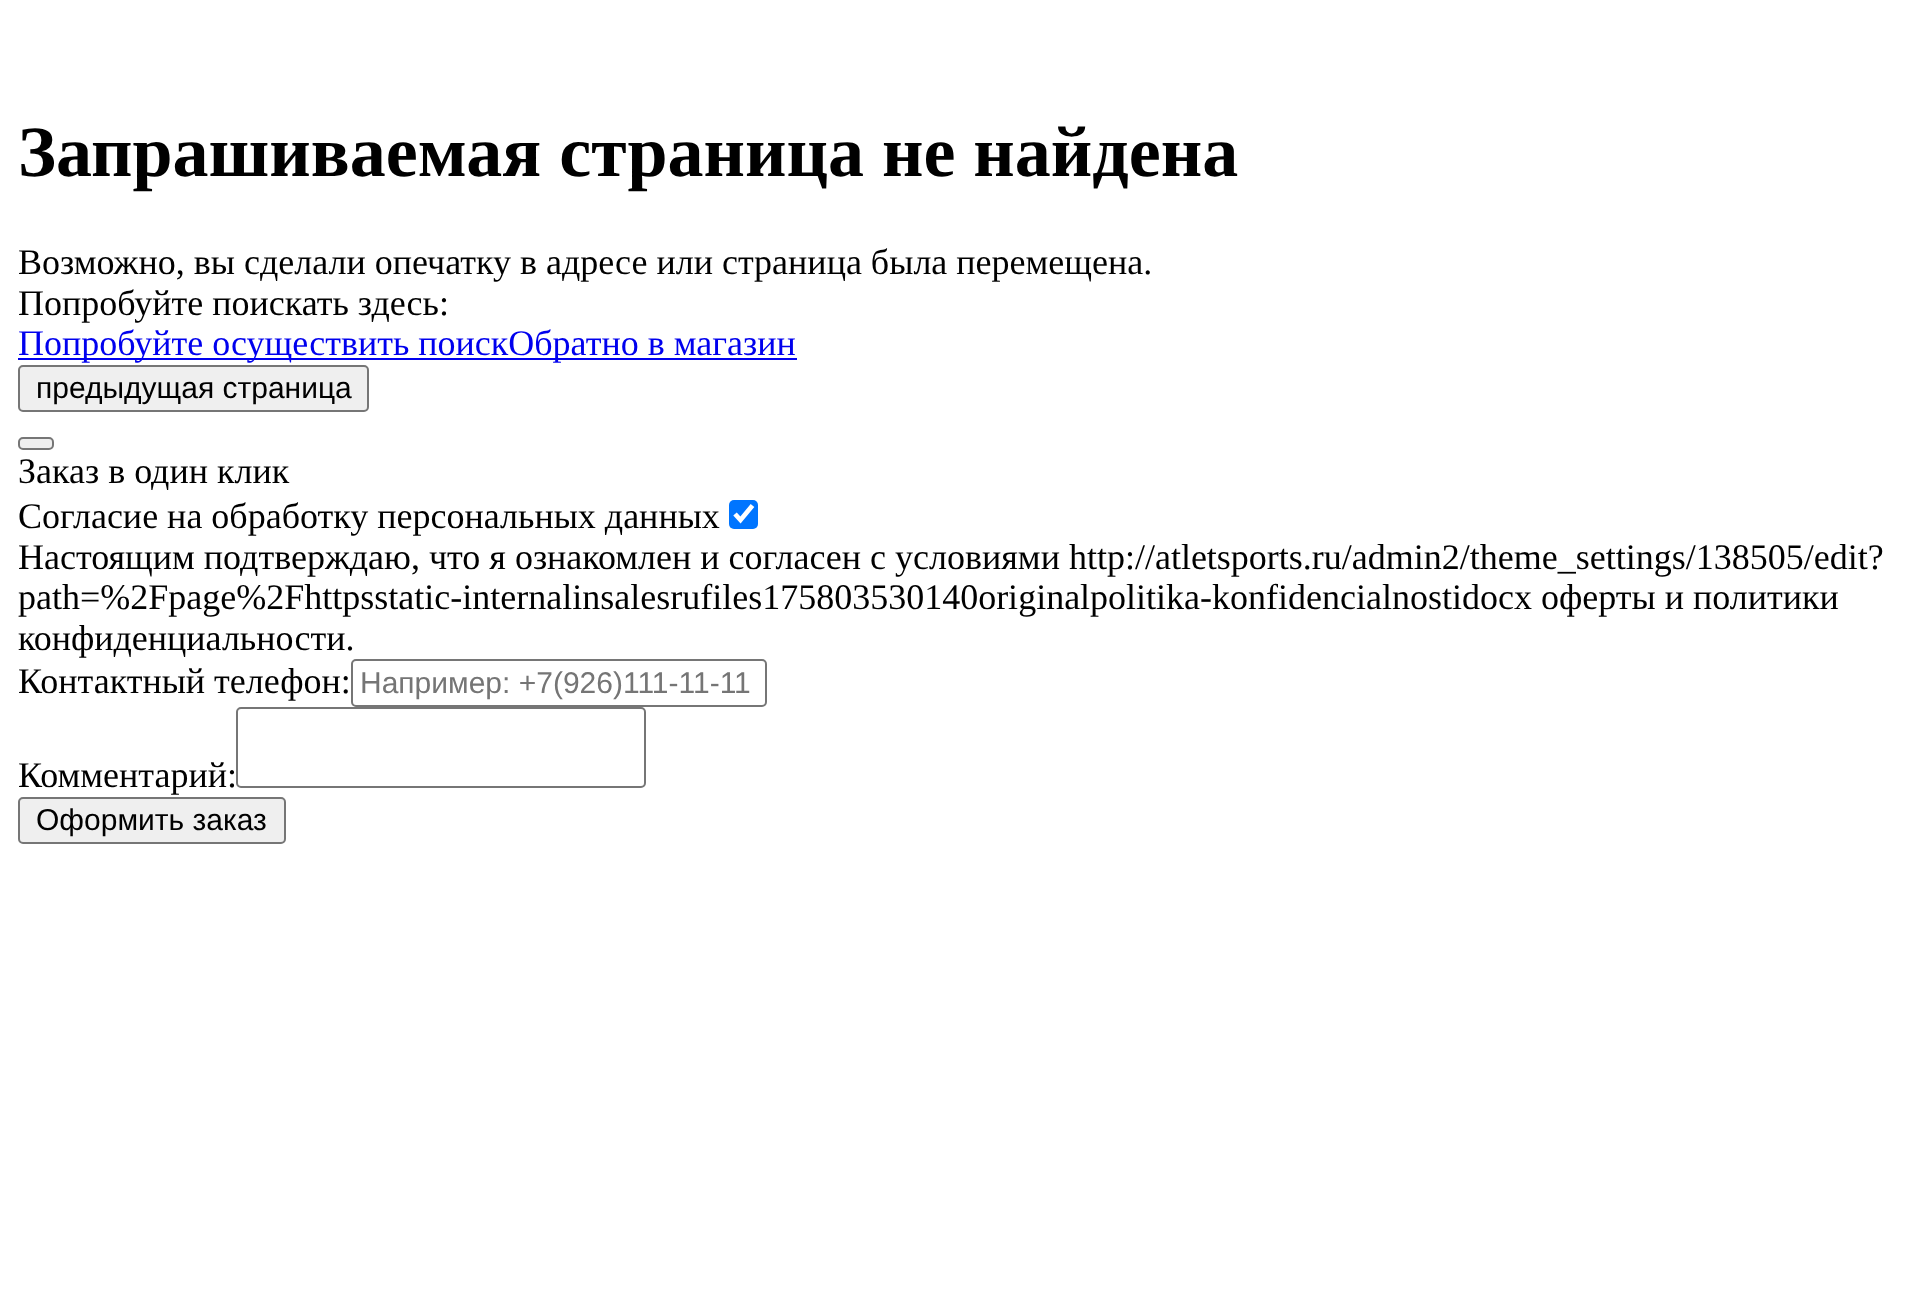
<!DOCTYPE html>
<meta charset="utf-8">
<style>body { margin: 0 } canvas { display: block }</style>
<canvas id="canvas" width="1913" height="1316"></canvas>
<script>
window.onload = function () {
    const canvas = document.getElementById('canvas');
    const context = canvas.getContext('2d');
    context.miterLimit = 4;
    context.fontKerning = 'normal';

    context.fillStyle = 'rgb(255, 255, 255)';
    context.fillRect(0, 0, 1913, 1316);
    context.fillStyle = 'rgb(0, 0, 238)';
    context.fillRect(18, 358, 779, 2);
    context.fillStyle = 'rgb(239, 239, 239)';
    context.beginPath();
    context.roundRect(19, 366, 349, 45, 4);
    context.fill();
    context.strokeStyle = 'rgb(118, 118, 118)';
    context.lineWidth = 2;
    context.stroke();
    context.beginPath();
    context.roundRect(19, 438, 34, 11, 4);
    context.fill();
    context.stroke();
    context.fillStyle = 'rgb(0, 117, 255)';
    context.beginPath();
    context.roundRect(729, 500, 29, 29, 5);
    context.fill();
    context.beginPath();
    context.moveTo(735, 514);
    context.lineTo(740.5, 520);
    context.lineTo(752.5, 505.5);
    context.strokeStyle = 'rgb(255, 255, 255)';
    context.lineWidth = 4.7;
    context.stroke();
    context.beginPath();
    context.roundRect(352, 660, 414, 46, 4);
    context.strokeStyle = 'rgb(118, 118, 118)';
    context.lineWidth = 2;
    context.stroke();
    context.beginPath();
    context.roundRect(237, 708, 408, 79, 4);
    context.stroke();
    context.fillStyle = 'rgb(239, 239, 239)';
    context.beginPath();
    context.roundRect(19, 798, 266, 45, 4);
    context.fill();
    context.stroke();
    context.font = 'bold 72px Liberation Serif';
    context.fillStyle = 'rgb(0, 0, 0)';
    context.fillText('Запрашиваемая страница не найдена', 18, 176);
    context.font = '36px Liberation Serif';
    context.fillText('Возможно, вы сделали опечатку в адресе или страница была перемещена.', 18, 274);
    context.fillText('Попробуйте поискать здесь:', 18, 315);
    context.fillStyle = 'rgb(0, 0, 238)';
    context.fillText('Попробуйте осуществить поискОбратно в магазин', 18, 355);
    context.font = '30px Liberation Sans';
    context.fillStyle = 'rgb(0, 0, 0)';
    context.fillText('предыдущая страница', 36, 398);
    context.font = '36px Liberation Serif';
    context.fillText('Заказ в один клик', 18, 483);
    context.fillText('Согласие на обработку персональных данных', 18, 528);
    context.fillText('Настоящим подтверждаю, что я ознакомлен и согласен с условиями http://atletsports.ru/admin2/theme_settings/138505/edit?', 18, 569);
    context.fillText('path=%2Fpage%2Fhttpsstatic-internalinsalesrufiles175803530140originalpolitika-konfidencialnostidocx оферты и политики', 18, 609);
    context.fillText('конфиденциальности.', 18, 650);
    context.fillText('Контактный телефон:', 18, 693);
    context.font = '30px Liberation Sans';
    context.fillStyle = 'rgb(117, 117, 117)';
    context.fillText('Например: +7(926)111-11-11', 360, 693);
    context.font = '36px Liberation Serif';
    context.fillStyle = 'rgb(0, 0, 0)';
    context.fillText('Комментарий:', 18, 787);
    context.font = '30px Liberation Sans';
    context.fillText('Оформить заказ', 36, 830);
};
</script>
